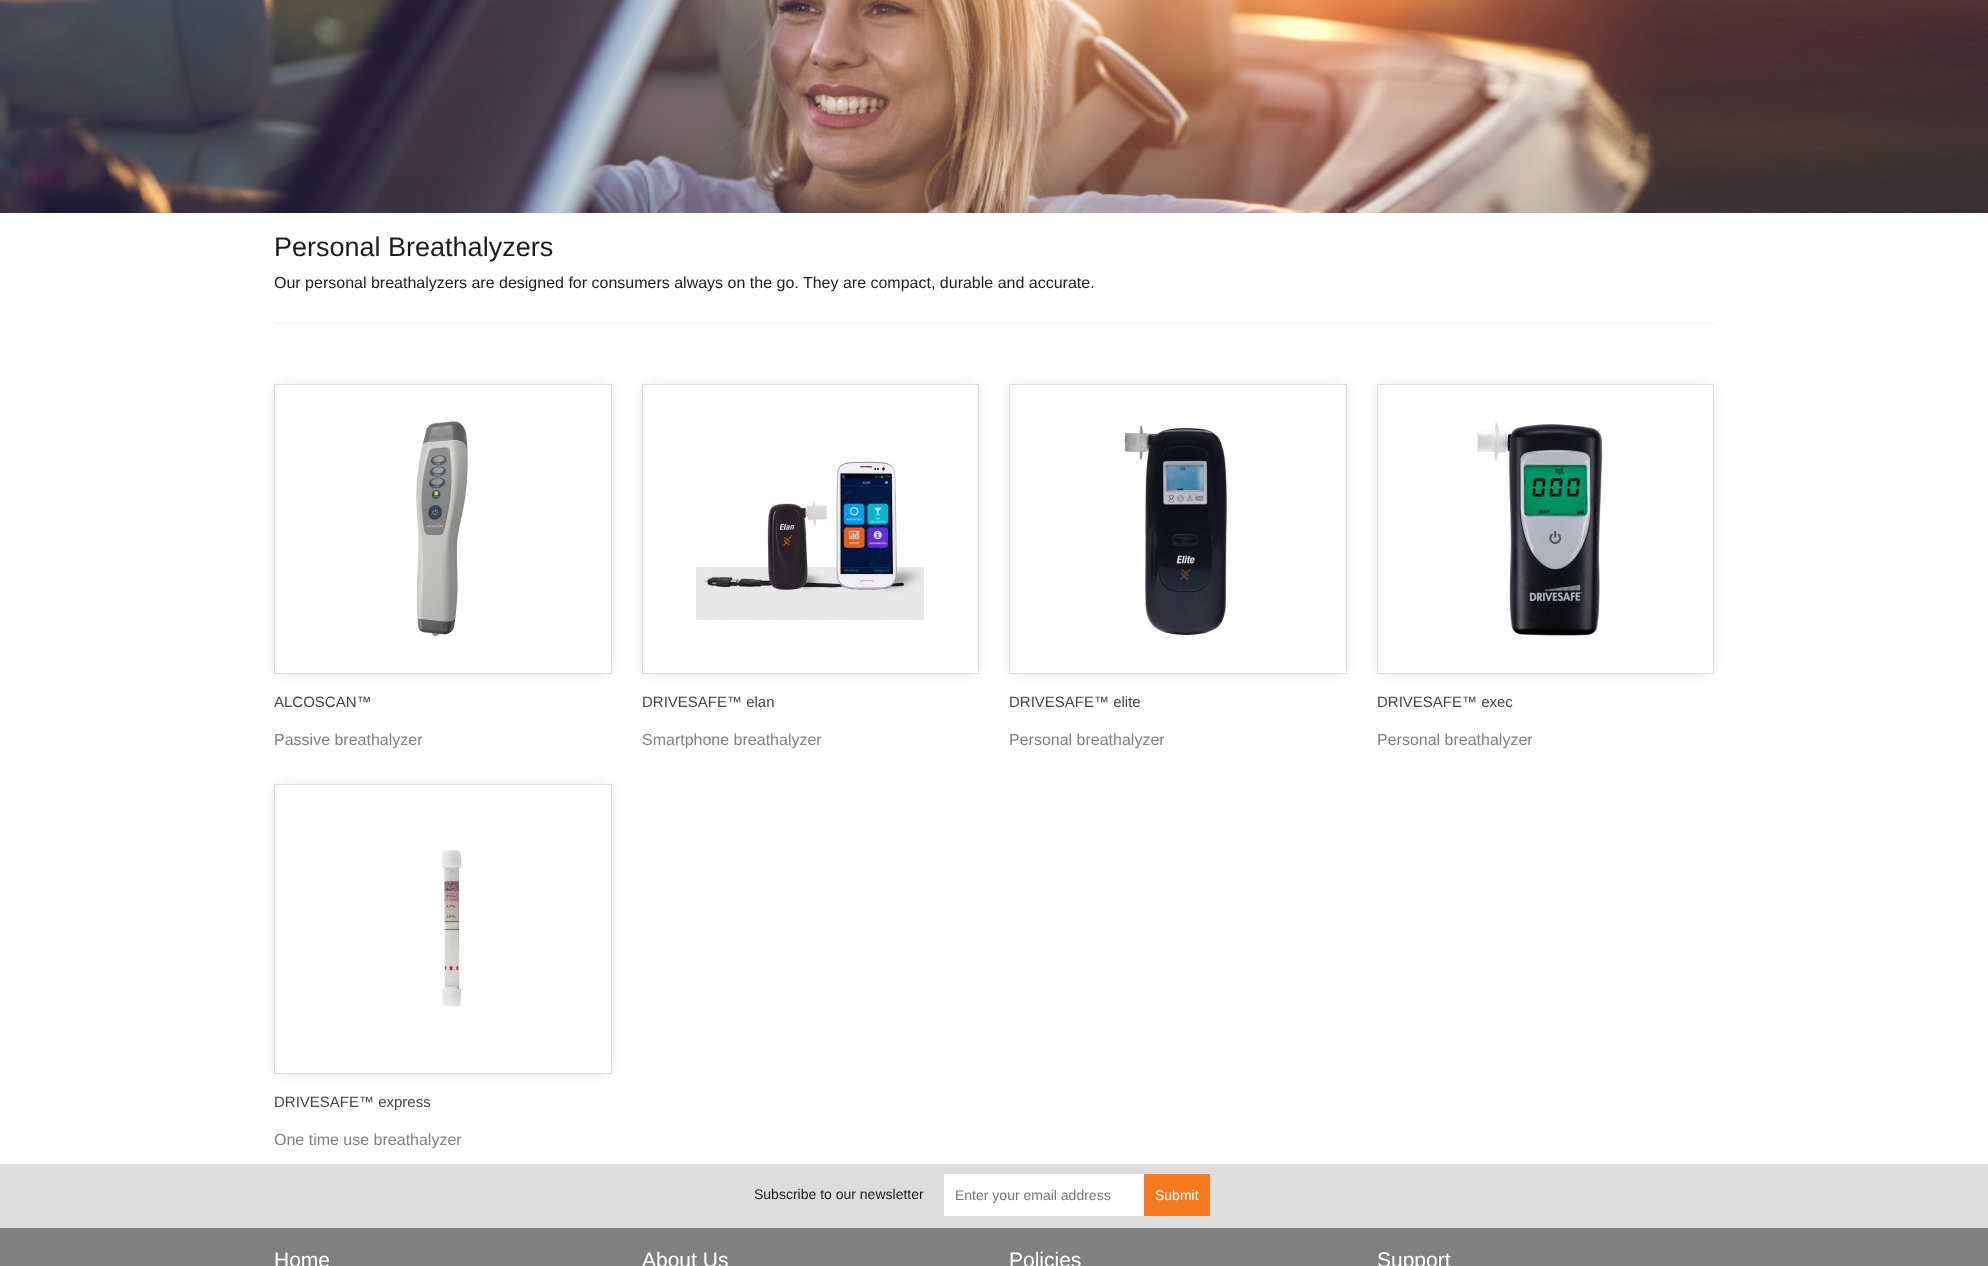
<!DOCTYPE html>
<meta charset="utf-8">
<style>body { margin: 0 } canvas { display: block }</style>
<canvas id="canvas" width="1988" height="1266"></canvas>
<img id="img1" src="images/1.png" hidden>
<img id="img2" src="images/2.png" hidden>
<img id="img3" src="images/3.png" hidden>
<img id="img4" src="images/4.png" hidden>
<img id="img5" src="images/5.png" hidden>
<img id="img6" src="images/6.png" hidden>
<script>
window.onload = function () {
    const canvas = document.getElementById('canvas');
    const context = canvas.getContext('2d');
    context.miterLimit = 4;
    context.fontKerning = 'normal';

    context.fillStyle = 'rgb(255, 255, 255)';
    context.fillRect(0, 0, 1988, 1266);
    context.drawImage(document.getElementById('img1'), 0, 0, 1988, 213);
    context.fillStyle = 'rgb(238, 238, 238)';
    context.fillRect(274, 323, 1440, 1);
    context.save();
    context.beginPath();
    context.moveTo(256, 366);
    context.lineTo(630, 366);
    context.lineTo(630, 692);
    context.lineTo(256, 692);
    context.closePath();
    context.moveTo(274, 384);
    context.lineTo(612, 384);
    context.lineTo(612, 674);
    context.lineTo(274, 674);
    context.closePath();
    context.clip('evenodd');
    context.fillStyle = 'rgba(0, 0, 0, 0.2)';
    context.filter = 'blur(7px)';
    context.beginPath();
    context.rect(278, 388, 330, 282);
    context.fill();
    context.filter = 'none';
    context.restore();
    context.strokeStyle = 'rgb(221, 221, 221)';
    context.strokeRect(274.5, 384.5, 337, 289);
    context.drawImage(document.getElementById('img2'), 410, 416, 63, 222);
    context.save();
    context.beginPath();
    context.moveTo(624, 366);
    context.lineTo(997, 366);
    context.lineTo(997, 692);
    context.lineTo(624, 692);
    context.closePath();
    context.moveTo(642, 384);
    context.lineTo(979, 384);
    context.lineTo(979, 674);
    context.lineTo(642, 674);
    context.closePath();
    context.clip('evenodd');
    context.fillStyle = 'rgba(0, 0, 0, 0.2)';
    context.filter = 'blur(7px)';
    context.beginPath();
    context.rect(646, 388, 329, 282);
    context.fill();
    context.filter = 'none';
    context.restore();
    context.strokeRect(642.5, 384.5, 336, 289);
    context.drawImage(document.getElementById('img3'), 696, 459, 228, 161);
    context.save();
    context.beginPath();
    context.moveTo(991, 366);
    context.lineTo(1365, 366);
    context.lineTo(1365, 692);
    context.lineTo(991, 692);
    context.closePath();
    context.moveTo(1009, 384);
    context.lineTo(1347, 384);
    context.lineTo(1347, 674);
    context.lineTo(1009, 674);
    context.closePath();
    context.clip('evenodd');
    context.fillStyle = 'rgba(0, 0, 0, 0.2)';
    context.filter = 'blur(7px)';
    context.beginPath();
    context.rect(1013, 388, 330, 282);
    context.fill();
    context.filter = 'none';
    context.restore();
    context.strokeRect(1009.5, 384.5, 337, 289);
    context.drawImage(document.getElementById('img4'), 1121, 417, 111, 222);
    context.save();
    context.beginPath();
    context.moveTo(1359, 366);
    context.lineTo(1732, 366);
    context.lineTo(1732, 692);
    context.lineTo(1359, 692);
    context.closePath();
    context.moveTo(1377, 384);
    context.lineTo(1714, 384);
    context.lineTo(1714, 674);
    context.lineTo(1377, 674);
    context.closePath();
    context.clip('evenodd');
    context.fillStyle = 'rgba(0, 0, 0, 0.2)';
    context.filter = 'blur(7px)';
    context.beginPath();
    context.rect(1381, 388, 329, 282);
    context.fill();
    context.filter = 'none';
    context.restore();
    context.strokeRect(1377.5, 384.5, 336, 289);
    context.drawImage(document.getElementById('img5'), 1477, 419, 130, 220);
    context.save();
    context.beginPath();
    context.moveTo(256, 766);
    context.lineTo(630, 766);
    context.lineTo(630, 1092);
    context.lineTo(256, 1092);
    context.closePath();
    context.moveTo(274, 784);
    context.lineTo(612, 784);
    context.lineTo(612, 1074);
    context.lineTo(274, 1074);
    context.closePath();
    context.clip('evenodd');
    context.fillStyle = 'rgba(0, 0, 0, 0.2)';
    context.filter = 'blur(7px)';
    context.beginPath();
    context.rect(278, 788, 330, 282);
    context.fill();
    context.filter = 'none';
    context.restore();
    context.strokeRect(274.5, 784.5, 337, 289);
    context.drawImage(document.getElementById('img6'), 441, 849, 30, 158);
    context.fillStyle = 'rgb(221, 221, 221)';
    context.fillRect(0, 1164, 1988, 64);
    context.fillStyle = 'rgb(255, 255, 255)';
    context.fillRect(944, 1174, 200, 42);
    context.fillStyle = 'rgb(244, 121, 32)';
    context.fillRect(1144, 1174, 66, 42);
    context.fillStyle = 'rgb(128, 128, 128)';
    context.fillRect(0, 1228, 1988, 38);
    context.font = '27px Liberation Sans';
    context.fillStyle = 'rgb(27, 27, 27)';
    context.fillText('Personal Breathalyzers', 274, 256);
    context.font = '16px Liberation Sans';
    context.fillText('Our personal breathalyzers are designed for consumers always on the go. They are compact, durable and accurate.', 274, 288);
    context.font = '15px Liberation Sans';
    context.fillStyle = 'rgb(68, 68, 68)';
    context.fillText('ALCOSCAN™', 274, 707);
    context.font = '16px Liberation Sans';
    context.fillStyle = 'rgb(128, 128, 128)';
    context.fillText('Passive breathalyzer', 274, 745);
    context.font = '15px Liberation Sans';
    context.fillStyle = 'rgb(68, 68, 68)';
    context.fillText('DRIVESAFE™ elan', 642, 707);
    context.font = '16px Liberation Sans';
    context.fillStyle = 'rgb(128, 128, 128)';
    context.fillText('Smartphone breathalyzer', 642, 745);
    context.font = '15px Liberation Sans';
    context.fillStyle = 'rgb(68, 68, 68)';
    context.fillText('DRIVESAFE™ elite', 1009, 707);
    context.font = '16px Liberation Sans';
    context.fillStyle = 'rgb(128, 128, 128)';
    context.fillText('Personal breathalyzer', 1009, 745);
    context.font = '15px Liberation Sans';
    context.fillStyle = 'rgb(68, 68, 68)';
    context.fillText('DRIVESAFE™ exec', 1377, 707);
    context.font = '16px Liberation Sans';
    context.fillStyle = 'rgb(128, 128, 128)';
    context.fillText('Personal breathalyzer', 1377, 745);
    context.font = '15px Liberation Sans';
    context.fillStyle = 'rgb(68, 68, 68)';
    context.fillText('DRIVESAFE™ express', 274, 1107);
    context.font = '16px Liberation Sans';
    context.fillStyle = 'rgb(128, 128, 128)';
    context.fillText('One time use breathalyzer', 274, 1145);
    context.font = '14px Liberation Sans';
    context.fillStyle = 'rgb(27, 27, 27)';
    context.fillText('Subscribe to our newsletter', 754, 1199);
    context.fillStyle = 'rgb(117, 117, 117)';
    context.fillText('Enter your email address', 955, 1200);
    context.fillStyle = 'rgb(255, 255, 255)';
    context.fillText('Submit', 1155, 1200);
    context.font = '21px Liberation Sans';
    context.fillText('Home', 274, 1267);
    context.fillText('About Us', 642, 1267);
    context.fillText('Policies', 1009, 1267);
    context.fillText('Support', 1377, 1267);
};
</script>
